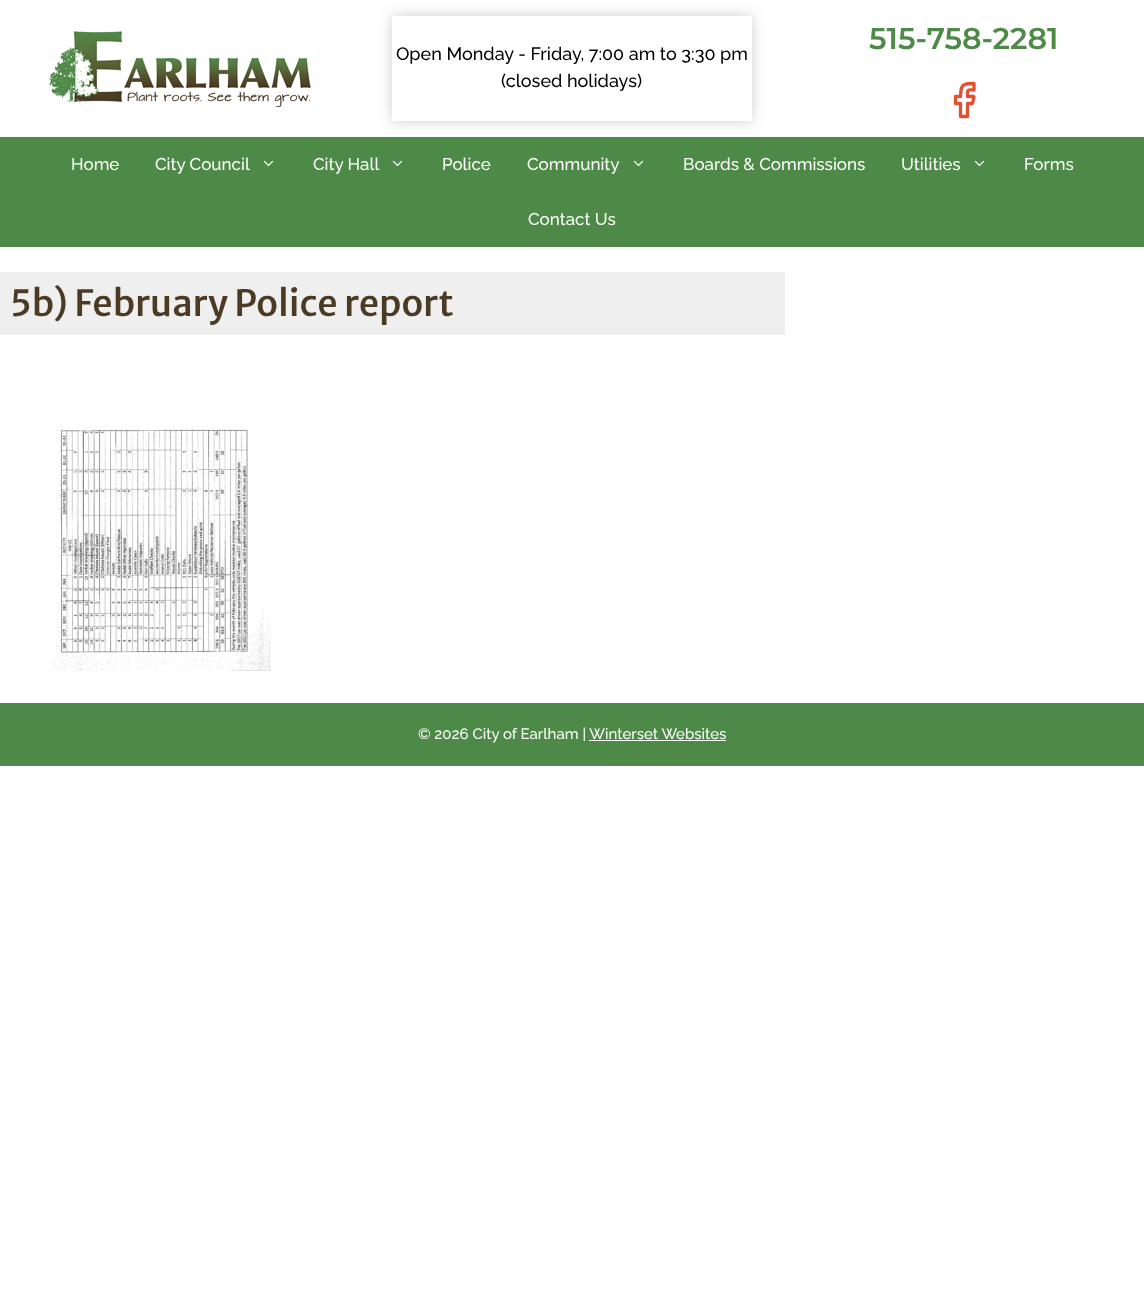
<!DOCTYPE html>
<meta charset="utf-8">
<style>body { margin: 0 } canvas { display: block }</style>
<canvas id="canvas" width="1144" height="1302"></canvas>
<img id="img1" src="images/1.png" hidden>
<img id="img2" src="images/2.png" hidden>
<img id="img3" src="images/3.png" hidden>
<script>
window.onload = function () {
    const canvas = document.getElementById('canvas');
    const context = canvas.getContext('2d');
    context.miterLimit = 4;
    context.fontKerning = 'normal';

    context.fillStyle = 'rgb(255, 255, 255)';
    context.fillRect(0, 0, 1144, 1302);
    context.drawImage(document.getElementById('img1'), 49, 31, 262, 76);
    context.fillStyle = 'rgb(78, 138, 71)';
    context.fillRect(0, 137, 1144, 110);
    context.save();
    context.beginPath();
    context.moveTo(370, 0);
    context.lineTo(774, 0);
    context.lineTo(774, 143);
    context.lineTo(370, 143);
    context.closePath();
    context.moveTo(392, 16);
    context.lineTo(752, 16);
    context.lineTo(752, 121);
    context.lineTo(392, 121);
    context.closePath();
    context.clip('evenodd');
    context.fillStyle = 'rgba(0, 0, 0, 0.2)';
    context.filter = 'blur(7px)';
    context.beginPath();
    context.rect(392, 16, 360, 105);
    context.fill();
    context.filter = 'none';
    context.restore();
    context.beginPath();
    context.moveTo(974, 83.5);
    context.bezierCurveTo(968.5, 83.5, 962, 83, 961, 90);
    context.lineTo(960.5, 96.5);
    context.lineTo(955.5, 96.5);
    context.lineTo(955.5, 103.5);
    context.lineTo(960.5, 103.5);
    context.lineTo(960.5, 116.5);
    context.lineTo(967.5, 116.5);
    context.lineTo(967.5, 103.5);
    context.lineTo(972.5, 103.5);
    context.lineTo(974, 96.5);
    context.lineTo(967.5, 96.5);
    context.bezierCurveTo(967.5, 89, 966.5, 90, 974, 90);
    context.closePath();
    context.strokeStyle = 'rgb(224, 80, 51)';
    context.lineWidth = 3.3;
    context.lineCap = 'round';
    context.lineJoin = 'round';
    context.stroke();
    context.drawImage(document.getElementById('img2'), 263, 160, 11, 7);
    context.drawImage(document.getElementById('img2'), 392, 160, 11, 7);
    context.drawImage(document.getElementById('img2'), 633, 160, 11, 7);
    context.drawImage(document.getElementById('img2'), 974, 160, 11, 7);
    context.fillStyle = 'rgb(239, 239, 239)';
    context.fillRect(0, 272, 785, 63);
    context.drawImage(document.getElementById('img3'), 51, 427, 221, 244);
    context.fillStyle = 'rgb(78, 138, 71)';
    context.fillRect(0, 703, 1144, 63);
    context.fillStyle = 'rgb(255, 255, 255)';
    context.fillRect(589, 740, 137, 1);
    context.font = '500 18px Raleway';
    context.fillStyle = 'rgb(0, 0, 0)';
    context.fillText('Open Monday - Friday, 7:00 am to 3:30 pm', 396, 60);
    context.fillText('(closed holidays)', 501, 87);
    context.font = '600 30px Montserrat';
    context.fillStyle = 'rgb(78, 138, 71)';
    context.fillText('515-758-2281', 869, 49);
    context.font = '500 17px Raleway';
    context.fillStyle = 'rgb(255, 255, 255)';
    context.fillText('Home', 71, 170);
    context.fillText('City Council', 155, 170);
    context.fillText('City Hall', 313, 170);
    context.fillText('Police', 442, 170);
    context.fillText('Community', 527, 170);
    context.fillText('Boards & Commissions', 683, 170);
    context.fillText('Utilities', 901, 170);
    context.fillText('Forms', 1024, 170);
    context.fillText('Contact Us', 528, 225);
    context.font = '500 36px Merriweather Sans';
    context.fillStyle = 'rgb(75, 59, 36)';
    context.fillText('5b) February Police report', 10, 316);
    context.font = '500 15px Raleway';
    context.fillStyle = 'rgb(255, 255, 255)';
    context.fillText('© 2026 City of Earlham | Winterset Websites', 418, 739);
};
</script>
